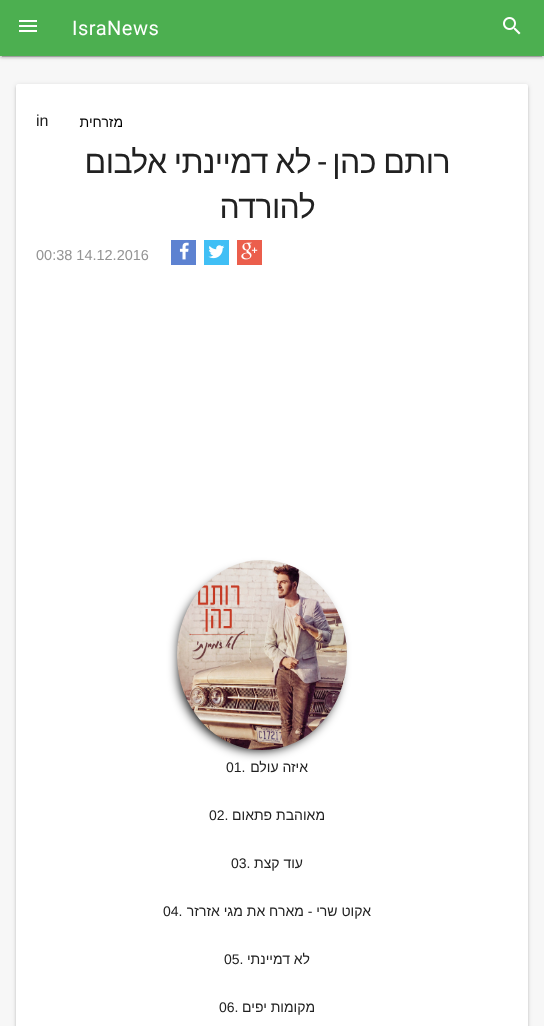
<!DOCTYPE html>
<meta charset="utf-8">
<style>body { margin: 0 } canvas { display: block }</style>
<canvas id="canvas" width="544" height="1026"></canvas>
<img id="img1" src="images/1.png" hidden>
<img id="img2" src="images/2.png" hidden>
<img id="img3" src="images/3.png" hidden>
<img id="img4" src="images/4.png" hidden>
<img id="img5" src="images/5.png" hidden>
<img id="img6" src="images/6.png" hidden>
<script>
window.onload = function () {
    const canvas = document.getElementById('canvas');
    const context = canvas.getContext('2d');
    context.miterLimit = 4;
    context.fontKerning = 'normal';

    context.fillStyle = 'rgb(247, 247, 247)';
    context.fillRect(0, 0, 544, 1026);
    context.fillStyle = 'rgba(0, 0, 0, 0.12)';
    context.filter = 'blur(2.5px)';
    context.beginPath();
    context.rect(0, 1, 544, 56);
    context.fill();
    context.filter = 'none';
    context.fillStyle = 'rgba(0, 0, 0, 0.2)';
    context.filter = 'blur(0.5px)';
    context.beginPath();
    context.rect(2, 5, 540, 52);
    context.fill();
    context.filter = 'none';
    context.fillStyle = 'rgba(0, 0, 0, 0.14)';
    context.filter = 'blur(1px)';
    context.beginPath();
    context.rect(0, 2, 544, 56);
    context.fill();
    context.filter = 'none';
    context.fillStyle = 'rgb(76, 175, 80)';
    context.fillRect(0, 0, 544, 56);
    context.drawImage(document.getElementById('img1'), 503, 17, 18, 18);
    context.drawImage(document.getElementById('img2'), 19, 20, 18, 12);
    context.fillStyle = 'rgba(0, 0, 0, 0.12)';
    context.filter = 'blur(2.5px)';
    context.beginPath();
    context.roundRect(16, 85, 512, 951, 2);
    context.fill();
    context.filter = 'none';
    context.fillStyle = 'rgba(0, 0, 0, 0.14)';
    context.filter = 'blur(1px)';
    context.beginPath();
    context.roundRect(16, 86, 512, 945, 2);
    context.fill();
    context.filter = 'none';
    context.fillStyle = 'rgb(255, 255, 255)';
    context.beginPath();
    context.roundRect(16, 84, 512, 942, [2, 2, 0, 0]);
    context.fill();
    context.fillStyle = 'rgb(235, 94, 76)';
    context.fillRect(237, 240, 25, 25);
    context.drawImage(document.getElementById('img3'), 241, 242, 17, 18);
    context.fillStyle = 'rgb(64, 191, 245)';
    context.fillRect(204, 240, 25, 25);
    context.drawImage(document.getElementById('img4'), 208, 245, 17, 14);
    context.fillStyle = 'rgb(93, 130, 209)';
    context.fillRect(171, 240, 25, 25);
    context.drawImage(document.getElementById('img5'), 179, 242, 10, 18);
    context.fillStyle = 'rgb(0, 0, 0)';
    context.filter = 'blur(5.5px)';
    context.beginPath();
    context.roundRect(179, 570, 160, 180, 80);
    context.fill();
    context.filter = 'none';
    context.drawImage(document.getElementById('img6'), 177, 560, 170, 190);
    context.letterSpacing = '0.5px';
    context.font = '20px Roboto';
    context.fillStyle = 'rgb(255, 255, 255)';
    context.fillText('IsraNews', 72, 35);
    context.letterSpacing = '0px';
    context.direction = 'rtl';
    context.font = '14px Liberation Sans';
    context.fillStyle = 'rgb(0, 0, 0)';
    context.fillText('מזרחית', 123, 127);
    context.direction = 'ltr';
    context.font = '16px Liberation Sans';
    context.fillStyle = 'rgb(33, 33, 33)';
    context.fillText('in', 36, 126);
    context.letterSpacing = '-0.6px';
    context.wordSpacing = '-1px';
    context.direction = 'rtl';
    context.font = '32px Liberation Sans';
    context.fillText('רותם כהן', 450, 173);
    context.wordSpacing = '0px';
    context.font = '32px Roboto';
    context.fillText('-', 326, 173);
    context.wordSpacing = '-1px';
    context.font = '32px Liberation Sans';
    context.fillText('לא דמיינתי אלבום', 311, 173);
    context.wordSpacing = '0px';
    context.fillText('להורדה', 315, 218);
    context.letterSpacing = '0px';
    context.direction = 'ltr';
    context.font = '14.5px Liberation Sans';
    context.fillStyle = 'rgb(148, 148, 148)';
    context.fillText('00:38 14.12.2016', 36, 260);
    context.direction = 'rtl';
    context.font = '14px Liberation Sans';
    context.fillStyle = 'rgb(33, 33, 33)';
    context.fillText('איזה עולם', 308, 772);
    context.direction = 'ltr';
    context.fillText('01.', 226, 772);
    context.direction = 'rtl';
    context.fillText('מאוהבת פתאום', 325, 820);
    context.direction = 'ltr';
    context.fillText('02.', 209, 820);
    context.direction = 'rtl';
    context.fillText('עוד קצת', 303, 868);
    context.direction = 'ltr';
    context.fillText('03.', 231, 868);
    context.direction = 'rtl';
    context.fillText('אקוט שרי - מארח את מגי אזרזר', 371, 916);
    context.direction = 'ltr';
    context.fillText('04.', 163, 916);
    context.direction = 'rtl';
    context.fillText('לא דמיינתי', 310, 964);
    context.direction = 'ltr';
    context.fillText('05.', 224, 964);
    context.direction = 'rtl';
    context.fillText('מקומות יפים', 315, 1012);
    context.direction = 'ltr';
    context.fillText('06.', 219, 1012);
};
</script>
